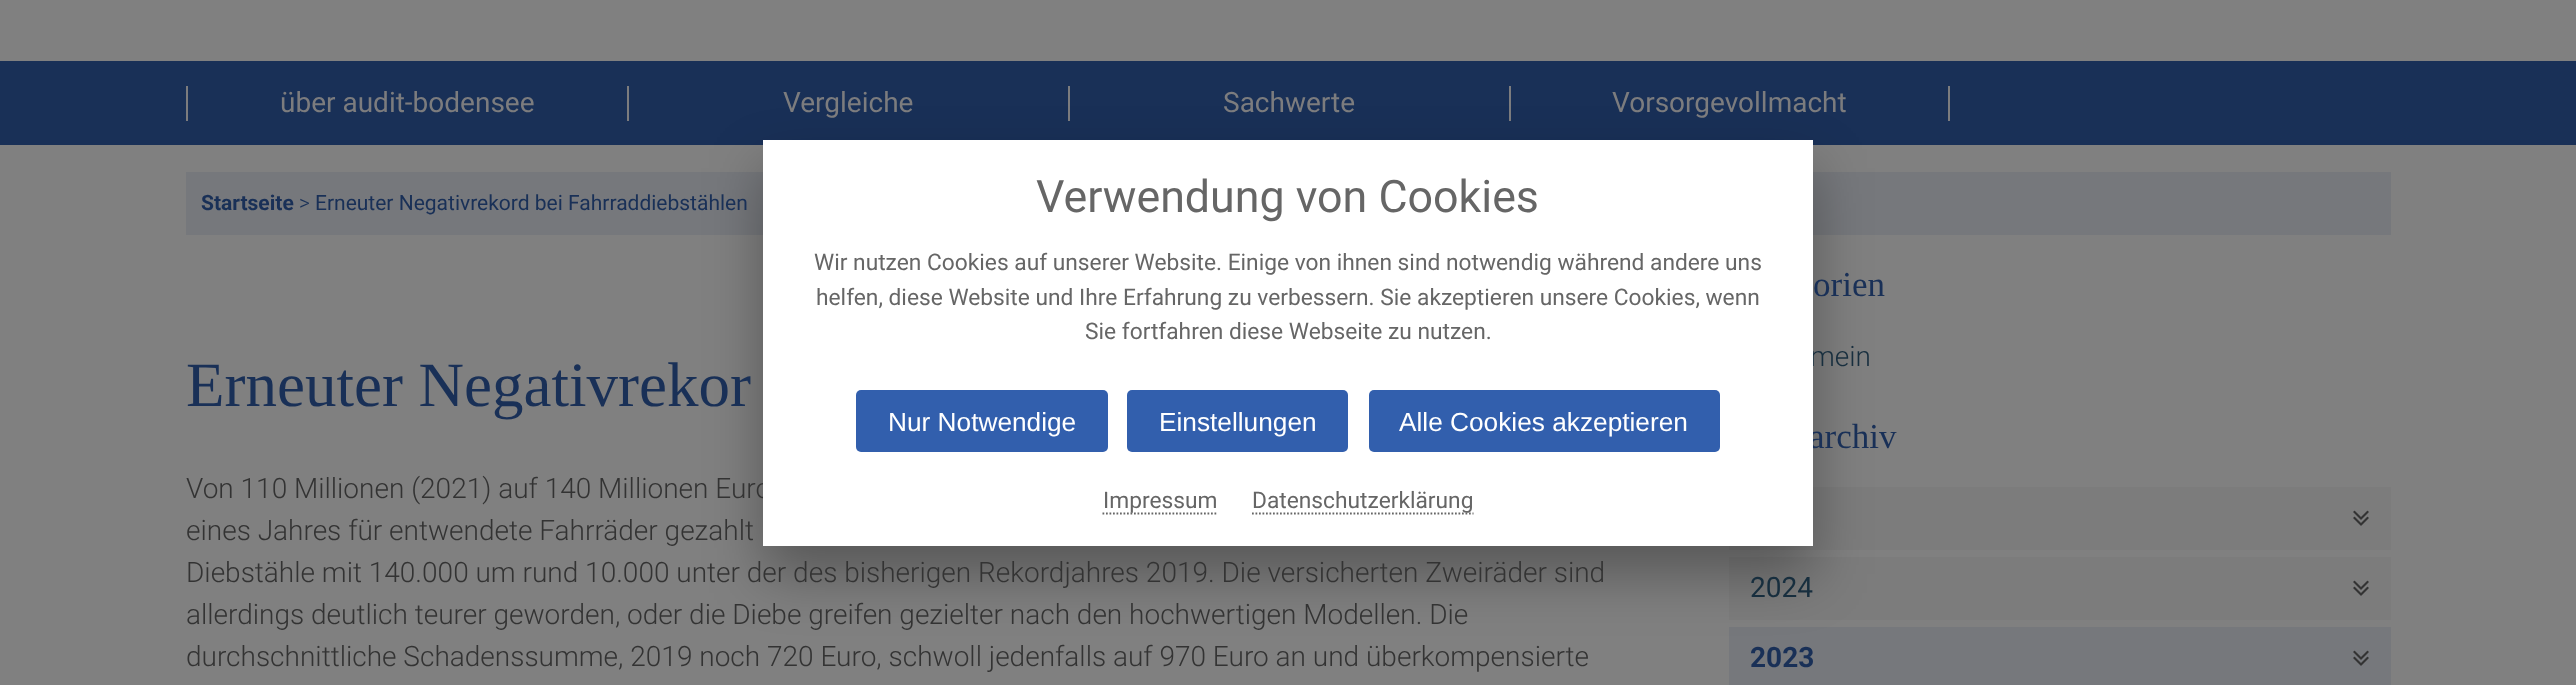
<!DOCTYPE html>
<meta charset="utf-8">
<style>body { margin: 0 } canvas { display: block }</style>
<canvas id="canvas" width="2576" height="685"></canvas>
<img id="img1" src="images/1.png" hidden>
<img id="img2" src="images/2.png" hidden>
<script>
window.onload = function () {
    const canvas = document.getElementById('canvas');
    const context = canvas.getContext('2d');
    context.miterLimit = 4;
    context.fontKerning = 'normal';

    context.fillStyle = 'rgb(128, 128, 128)';
    context.fillRect(0, 0, 2576, 685);
    context.fillStyle = 'rgb(25, 48, 87)';
    context.fillRect(0, 61, 2576, 84);
    context.fillStyle = 'rgb(124, 124, 126)';
    context.fillRect(186, 86, 2, 35);
    context.fillRect(627, 86, 2, 35);
    context.fillRect(1068, 86, 2, 35);
    context.fillRect(1948, 86, 2, 35);
    context.fillRect(1509, 86, 2, 35);
    context.fillStyle = 'rgb(118, 120, 124)';
    context.fillRect(186, 172, 2205, 63);
    context.fillStyle = 'rgb(124, 124, 124)';
    context.fillRect(1729, 487, 662, 63);
    context.drawImage(document.getElementById('img1'), 2353, 510, 16, 16);
    context.fillRect(1729, 557, 662, 63);
    context.drawImage(document.getElementById('img1'), 2353, 580, 16, 16);
    context.fillStyle = 'rgb(118, 120, 124)';
    context.fillRect(1729, 627, 662, 58);
    context.drawImage(document.getElementById('img2'), 2353, 650, 16, 16);
    context.fillStyle = 'rgba(0, 0, 0, 0.32)';
    context.filter = 'blur(28px)';
    context.beginPath();
    context.rect(763, 168, 1050, 406);
    context.fill();
    context.filter = 'none';
    context.font = '28px Roboto';
    context.fillStyle = 'rgb(124, 124, 126)';
    context.fillText('über audit-bodensee', 280, 112);
    context.fillText('Vergleiche', 783, 112);
    context.fillText('Sachwerte', 1223, 112);
    context.fillText('Vorsorgevollmacht', 1612, 112);
    context.font = 'bold 21px Roboto';
    context.fillStyle = 'rgb(25, 48, 87)';
    context.fillText('Startseite', 201, 210);
    context.font = '300 21px Roboto';
    context.fillText('>', 299, 210);
    context.font = '21px Roboto';
    context.fillText('Erneuter Negativrekord bei Fahrraddiebstählen', 315, 210);
    context.font = '63px Liberation Serif';
    context.fillText('Erneuter Negativrekor', 186, 406);
    context.font = '300 28px Roboto';
    context.fillStyle = 'rgb(51, 51, 51)';
    context.fillText('Von 110 Millionen (2021) auf 140 Millionen Euro', 186, 498);
    context.fillText('eines Jahres für entwendete Fahrräder gezahlt', 186, 540);
    context.fillText('Diebstähle mit 140.000 um rund 10.000 unter der des bisherigen Rekordjahres 2019. Die versicherten Zweiräder sind', 186, 582);
    context.fillText('allerdings deutlich teurer geworden, oder die Diebe greifen gezielter nach den hochwertigen Modellen. Die', 186, 624);
    context.fillText('durchschnittliche Schadenssumme, 2019 noch 720 Euro, schwoll jedenfalls auf 970 Euro an und überkompensierte', 186, 666);
    context.font = '35px Liberation Serif';
    context.fillStyle = 'rgb(25, 48, 87)';
    context.fillText('orien', 1813, 296);
    context.font = '300 28px Roboto';
    context.fillStyle = 'rgb(23, 46, 62)';
    context.fillText('mein', 1810, 366);
    context.font = '35px Liberation Serif';
    context.fillStyle = 'rgb(25, 48, 87)';
    context.fillText('archiv', 1809, 448);
    context.font = '28px Roboto';
    context.fillStyle = 'rgb(23, 46, 62)';
    context.fillText('2024', 1750, 597);
    context.font = 'bold 28px Roboto';
    context.fillStyle = 'rgb(25, 48, 87)';
    context.fillText('2023', 1750, 667);
    context.fillStyle = 'rgb(255, 255, 255)';
    context.fillRect(763, 140, 1050, 406);
    context.font = '44.75px Roboto';
    context.fillStyle = 'rgb(102, 102, 102)';
    context.fillText('Verwendung von Cookies', 1036, 212);
    context.font = '22.75px Roboto';
    context.fillText('Wir nutzen Cookies auf unserer Website. Einige von ihnen sind notwendig während andere uns', 814, 270);
    context.fillText('helfen, diese Website und Ihre Erfahrung zu verbessern. Sie akzeptieren unsere Cookies, wenn', 816, 305);
    context.fillText('Sie fortfahren diese Webseite zu nutzen.', 1085, 339);
    context.fillStyle = 'rgb(50, 95, 173)';
    context.beginPath();
    context.roundRect(856, 390, 252, 62, 5);
    context.fill();
    context.font = '26.25px Liberation Sans';
    context.fillStyle = 'rgb(255, 255, 255)';
    context.fillText('Nur Notwendige', 888, 431);
    context.fillStyle = 'rgb(50, 95, 173)';
    context.beginPath();
    context.roundRect(1127, 390, 221, 62, 5);
    context.fill();
    context.fillStyle = 'rgb(255, 255, 255)';
    context.fillText('Einstellungen', 1159, 431);
    context.fillStyle = 'rgb(50, 95, 173)';
    context.beginPath();
    context.roundRect(1369, 390, 351, 62, 5);
    context.fill();
    context.fillStyle = 'rgb(255, 255, 255)';
    context.fillText('Alle Cookies akzeptieren', 1399, 431);
    context.beginPath();
    context.moveTo(1102.5, 513.5);
    context.lineTo(1217, 513.5);
    context.strokeStyle = 'rgb(102, 102, 102)';
    context.lineWidth = 1.8;
    context.setLineDash([1.75, 1.75]);
    context.stroke();
    context.font = '22.75px Roboto';
    context.fillStyle = 'rgb(102, 102, 102)';
    context.fillText('Impressum', 1103, 508);
    context.beginPath();
    context.moveTo(1252, 513.5);
    context.lineTo(1473.5, 513.5);
    context.stroke();
    context.fillText('Datenschutzerklärung', 1252, 508);
};
</script>
